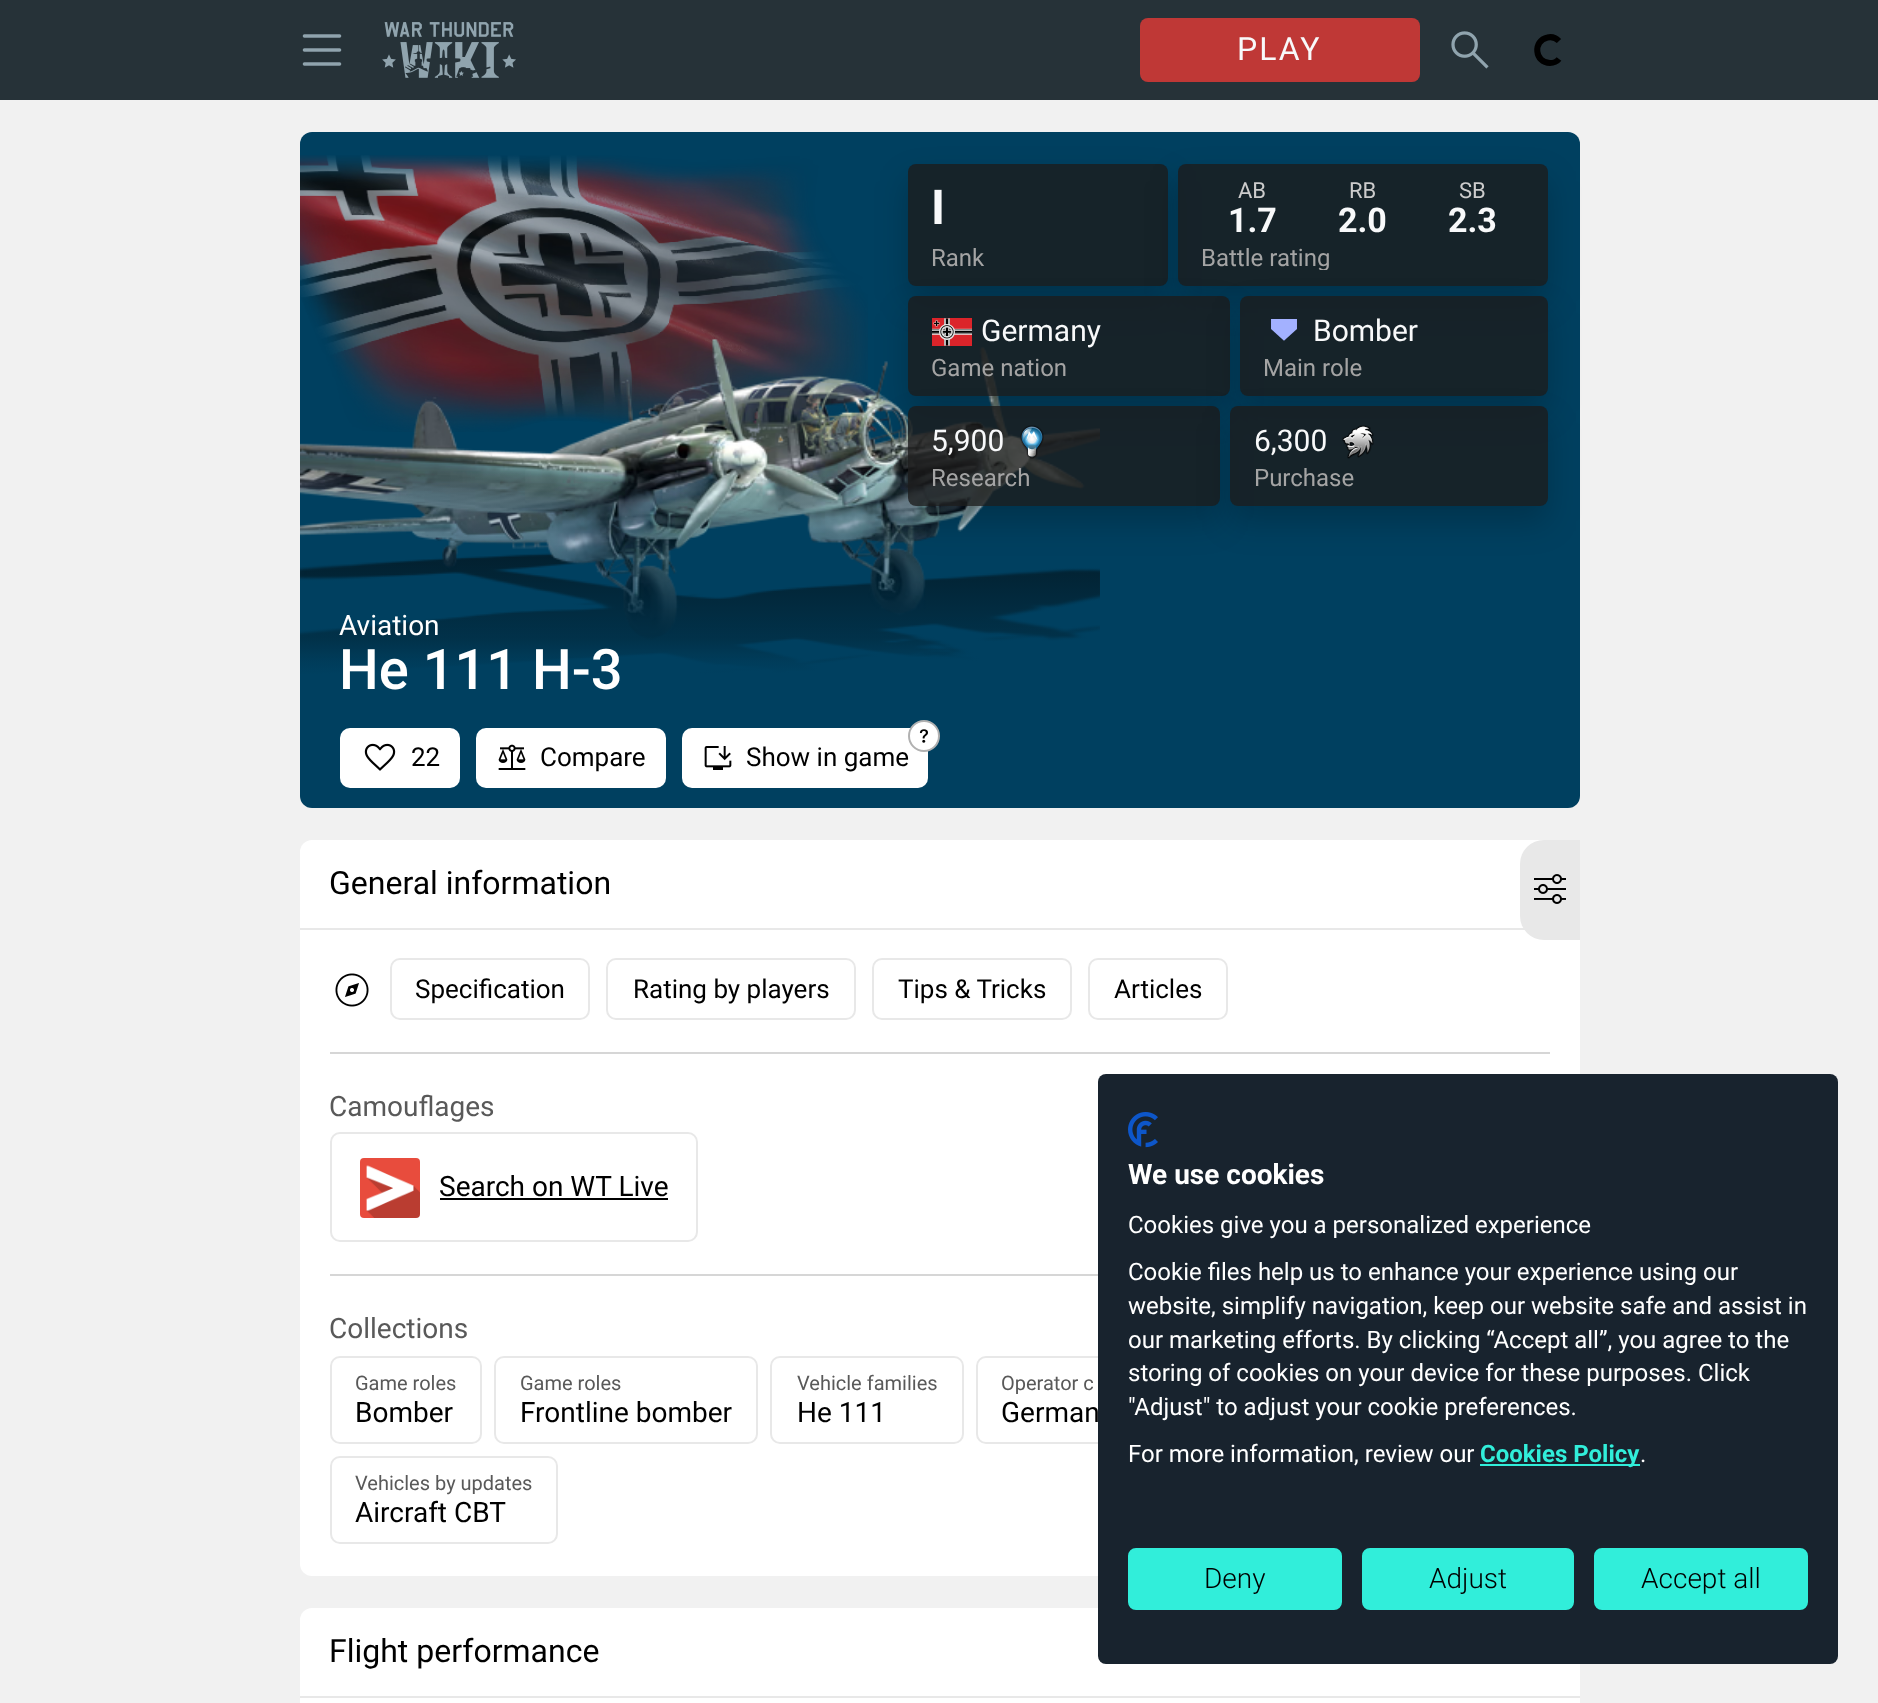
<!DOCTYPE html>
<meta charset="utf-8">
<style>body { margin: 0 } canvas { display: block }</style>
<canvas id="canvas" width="1878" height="1703"></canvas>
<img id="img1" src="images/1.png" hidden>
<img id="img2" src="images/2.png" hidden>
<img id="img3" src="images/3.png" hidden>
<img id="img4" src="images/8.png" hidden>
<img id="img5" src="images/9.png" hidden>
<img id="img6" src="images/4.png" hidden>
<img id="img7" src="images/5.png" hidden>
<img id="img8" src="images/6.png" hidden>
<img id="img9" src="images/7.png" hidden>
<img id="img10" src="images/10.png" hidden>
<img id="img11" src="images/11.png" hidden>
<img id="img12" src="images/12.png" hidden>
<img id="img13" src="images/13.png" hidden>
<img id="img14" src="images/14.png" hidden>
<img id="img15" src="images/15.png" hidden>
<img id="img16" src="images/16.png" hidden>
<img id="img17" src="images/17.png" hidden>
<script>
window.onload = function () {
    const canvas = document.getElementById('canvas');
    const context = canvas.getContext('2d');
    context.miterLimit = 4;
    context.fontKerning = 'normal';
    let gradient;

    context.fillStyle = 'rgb(241, 241, 241)';
    context.fillRect(0, 0, 1878, 1703);
    context.fillStyle = 'rgb(38, 50, 56)';
    context.fillRect(0, 0, 1878, 100);
    context.drawImage(document.getElementById('img1'), 302, 34, 40, 32);
    context.drawImage(document.getElementById('img2'), 382, 22, 134, 56);
    context.fillStyle = 'rgb(191, 56, 54)';
    context.beginPath();
    context.roundRect(1140, 18, 280, 64, 8);
    context.fill();
    context.drawImage(document.getElementById('img3'), 1451, 31, 38, 38);
    context.beginPath();
    context.moveTo(1559, 59);
    context.bezierCurveTo(1557, 61.5, 1553.5, 63, 1550, 63);
    context.bezierCurveTo(1534.5, 63, 1532.5, 40.5, 1547.5, 37.5);
    context.bezierCurveTo(1551.5, 36.5, 1556, 38, 1559, 41);
    context.strokeStyle = 'rgb(0, 0, 0)';
    context.lineWidth = 6;
    context.stroke();
    context.fillStyle = 'rgb(0, 64, 96)';
    context.beginPath();
    context.roundRect(300, 132, 1280, 676, 12);
    context.fill();
    context.drawImage(document.getElementById('img4'), 300, 155, 568, 277);
    context.drawImage(document.getElementById('img5'), 300, 339, 800, 335);
    context.save();
    context.beginPath();
    context.moveTo(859, 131);
    context.lineTo(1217, 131);
    context.lineTo(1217, 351);
    context.lineTo(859, 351);
    context.closePath();
    context.moveTo(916, 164);
    context.lineTo(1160, 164);
    context.bezierCurveTo(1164.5, 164, 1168, 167.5, 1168, 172);
    context.lineTo(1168, 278);
    context.bezierCurveTo(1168, 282.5, 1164.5, 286, 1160, 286);
    context.lineTo(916, 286);
    context.bezierCurveTo(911.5, 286, 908, 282.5, 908, 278);
    context.lineTo(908, 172);
    context.bezierCurveTo(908, 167.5, 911.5, 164, 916, 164);
    context.closePath();
    context.clip('evenodd');
    context.fillStyle = 'rgba(0, 0, 0, 0.2)';
    context.filter = 'blur(16px)';
    context.beginPath();
    context.roundRect(908, 180, 260, 122, 8);
    context.fill();
    context.filter = 'none';
    context.restore();
    context.fillStyle = 'rgba(27, 27, 27, 0.8)';
    context.beginPath();
    context.roundRect(908, 164, 260, 122, 8);
    context.fill();
    context.save();
    context.beginPath();
    context.moveTo(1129, 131);
    context.lineTo(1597, 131);
    context.lineTo(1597, 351);
    context.lineTo(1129, 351);
    context.closePath();
    context.moveTo(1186, 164);
    context.lineTo(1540, 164);
    context.bezierCurveTo(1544.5, 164, 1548, 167.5, 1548, 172);
    context.lineTo(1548, 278);
    context.bezierCurveTo(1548, 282.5, 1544.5, 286, 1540, 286);
    context.lineTo(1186, 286);
    context.bezierCurveTo(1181.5, 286, 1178, 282.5, 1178, 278);
    context.lineTo(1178, 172);
    context.bezierCurveTo(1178, 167.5, 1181.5, 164, 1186, 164);
    context.closePath();
    context.clip('evenodd');
    context.fillStyle = 'rgba(0, 0, 0, 0.2)';
    context.filter = 'blur(16px)';
    context.beginPath();
    context.roundRect(1178, 180, 370, 122, 8);
    context.fill();
    context.filter = 'none';
    context.restore();
    context.beginPath();
    context.roundRect(1178, 164, 370, 122, 8);
    context.fill();
    context.save();
    context.beginPath();
    context.moveTo(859, 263);
    context.lineTo(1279, 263);
    context.lineTo(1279, 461);
    context.lineTo(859, 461);
    context.closePath();
    context.moveTo(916, 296);
    context.lineTo(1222, 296);
    context.bezierCurveTo(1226.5, 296, 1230, 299.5, 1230, 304);
    context.lineTo(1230, 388);
    context.bezierCurveTo(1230, 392.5, 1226.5, 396, 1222, 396);
    context.lineTo(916, 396);
    context.bezierCurveTo(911.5, 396, 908, 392.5, 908, 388);
    context.lineTo(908, 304);
    context.bezierCurveTo(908, 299.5, 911.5, 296, 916, 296);
    context.closePath();
    context.clip('evenodd');
    context.fillStyle = 'rgba(0, 0, 0, 0.2)';
    context.filter = 'blur(16px)';
    context.beginPath();
    context.roundRect(908, 312, 322, 100, 8);
    context.fill();
    context.filter = 'none';
    context.restore();
    context.beginPath();
    context.roundRect(908, 296, 322, 100, 8);
    context.fill();
    context.drawImage(document.getElementById('img6'), 932, 318, 40, 28);
    context.save();
    context.beginPath();
    context.moveTo(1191, 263);
    context.lineTo(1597, 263);
    context.lineTo(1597, 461);
    context.lineTo(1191, 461);
    context.closePath();
    context.moveTo(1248, 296);
    context.lineTo(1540, 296);
    context.bezierCurveTo(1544.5, 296, 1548, 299.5, 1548, 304);
    context.lineTo(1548, 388);
    context.bezierCurveTo(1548, 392.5, 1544.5, 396, 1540, 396);
    context.lineTo(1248, 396);
    context.bezierCurveTo(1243.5, 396, 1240, 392.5, 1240, 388);
    context.lineTo(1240, 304);
    context.bezierCurveTo(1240, 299.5, 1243.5, 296, 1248, 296);
    context.closePath();
    context.clip('evenodd');
    context.fillStyle = 'rgba(0, 0, 0, 0.2)';
    context.filter = 'blur(16px)';
    context.beginPath();
    context.roundRect(1240, 312, 308, 100, 8);
    context.fill();
    context.filter = 'none';
    context.restore();
    context.beginPath();
    context.roundRect(1240, 296, 308, 100, 8);
    context.fill();
    context.drawImage(document.getElementById('img7'), 1271, 319, 26, 22);
    gradient = context.createLinearGradient(940, 708, 940, 132);
    gradient.addColorStop(0, 'rgb(0, 64, 96)');
    gradient.addColorStop(0.42, 'rgba(0, 64, 96, 0)');
    context.fillStyle = gradient;
    context.fillRect(300, 471, 800, 203);
    context.save();
    context.beginPath();
    context.moveTo(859, 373);
    context.lineTo(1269, 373);
    context.lineTo(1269, 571);
    context.lineTo(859, 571);
    context.closePath();
    context.moveTo(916, 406);
    context.lineTo(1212, 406);
    context.bezierCurveTo(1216.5, 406, 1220, 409.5, 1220, 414);
    context.lineTo(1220, 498);
    context.bezierCurveTo(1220, 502.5, 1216.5, 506, 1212, 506);
    context.lineTo(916, 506);
    context.bezierCurveTo(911.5, 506, 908, 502.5, 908, 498);
    context.lineTo(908, 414);
    context.bezierCurveTo(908, 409.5, 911.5, 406, 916, 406);
    context.closePath();
    context.clip('evenodd');
    context.fillStyle = 'rgba(0, 0, 0, 0.2)';
    context.filter = 'blur(16px)';
    context.beginPath();
    context.roundRect(908, 422, 312, 100, 8);
    context.fill();
    context.filter = 'none';
    context.restore();
    context.fillStyle = 'rgba(27, 27, 27, 0.8)';
    context.beginPath();
    context.roundRect(908, 406, 312, 100, 8);
    context.fill();
    context.drawImage(document.getElementById('img8'), 1020, 425, 24, 34);
    context.save();
    context.beginPath();
    context.moveTo(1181, 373);
    context.lineTo(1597, 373);
    context.lineTo(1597, 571);
    context.lineTo(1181, 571);
    context.closePath();
    context.moveTo(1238, 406);
    context.lineTo(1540, 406);
    context.bezierCurveTo(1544.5, 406, 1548, 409.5, 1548, 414);
    context.lineTo(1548, 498);
    context.bezierCurveTo(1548, 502.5, 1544.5, 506, 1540, 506);
    context.lineTo(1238, 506);
    context.bezierCurveTo(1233.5, 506, 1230, 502.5, 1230, 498);
    context.lineTo(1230, 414);
    context.bezierCurveTo(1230, 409.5, 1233.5, 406, 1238, 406);
    context.closePath();
    context.clip('evenodd');
    context.fillStyle = 'rgba(0, 0, 0, 0.2)';
    context.filter = 'blur(16px)';
    context.beginPath();
    context.roundRect(1230, 422, 318, 100, 8);
    context.fill();
    context.filter = 'none';
    context.restore();
    context.beginPath();
    context.roundRect(1230, 406, 318, 100, 8);
    context.fill();
    context.drawImage(document.getElementById('img9'), 1342, 425, 32, 34);
    context.fillStyle = 'rgb(255, 255, 255)';
    context.beginPath();
    context.roundRect(340, 728, 120, 60, 10);
    context.fill();
    context.drawImage(document.getElementById('img10'), 364, 743, 32, 28);
    context.beginPath();
    context.roundRect(476, 728, 190, 60, 10);
    context.fill();
    context.drawImage(document.getElementById('img11'), 498, 744, 28, 26);
    context.beginPath();
    context.roundRect(682, 728, 246, 60, 10);
    context.fill();
    context.beginPath();
    context.arc(924, 736, 15, 0, 2 * Math.PI);
    context.fill();
    context.strokeStyle = 'rgb(177, 177, 177)';
    context.lineWidth = 2;
    context.stroke();
    context.drawImage(document.getElementById('img12'), 919, 729, 9, 14);
    context.drawImage(document.getElementById('img13'), 704, 746, 28, 24);
    context.beginPath();
    context.roundRect(300, 840, 1280, 736, 12);
    context.fill();
    context.fillStyle = 'rgb(232, 232, 232)';
    context.fillRect(300, 928, 1225, 2);
    context.drawImage(document.getElementById('img14'), 335, 973, 34, 34);
    context.beginPath();
    context.roundRect(391, 959, 198, 60, 9);
    context.strokeStyle = 'rgb(232, 232, 232)';
    context.stroke();
    context.beginPath();
    context.roundRect(607, 959, 248, 60, 9);
    context.stroke();
    context.beginPath();
    context.roundRect(873, 959, 198, 60, 9);
    context.stroke();
    context.beginPath();
    context.roundRect(1089, 959, 138, 60, 9);
    context.stroke();
    context.fillStyle = 'rgb(214, 214, 214)';
    context.fillRect(330, 1052, 1220, 2);
    context.beginPath();
    context.roundRect(331, 1133, 366, 108, 9);
    context.stroke();
    context.drawImage(document.getElementById('img15'), 360, 1158, 60, 60);
    context.fillStyle = 'rgb(0, 0, 0)';
    context.fillRect(440, 1198, 228, 2);
    context.fillStyle = 'rgb(214, 214, 214)';
    context.fillRect(330, 1274, 768, 2);
    context.beginPath();
    context.roundRect(331, 1357, 150, 86, 9);
    context.stroke();
    context.beginPath();
    context.roundRect(495, 1357, 262, 86, 9);
    context.stroke();
    context.beginPath();
    context.roundRect(771, 1357, 192, 86, 9);
    context.stroke();
    context.beginPath();
    context.roundRect(977, 1357, 198, 86, 9);
    context.stroke();
    context.beginPath();
    context.roundRect(331, 1457, 226, 86, 9);
    context.stroke();
    context.fillStyle = 'rgb(232, 232, 232)';
    context.beginPath();
    context.roundRect(1520, 840, 60, 100, [24, 0, 0, 24]);
    context.fill();
    context.drawImage(document.getElementById('img16'), 1534, 874, 32, 30);
    context.fillStyle = 'rgb(255, 255, 255)';
    context.beginPath();
    context.roundRect(300, 1608, 1280, 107, 12);
    context.fill();
    context.fillStyle = 'rgb(232, 232, 232)';
    context.fillRect(300, 1696, 1280, 2);
    context.fillStyle = 'rgb(24, 35, 46)';
    context.beginPath();
    context.roundRect(1098, 1074, 740, 590, 8);
    context.fill();
    context.drawImage(document.getElementById('img17'), 1128, 1112, 30, 36);
    context.fillStyle = 'rgb(49, 238, 218)';
    context.fillRect(1480, 1464, 160, 2);
    context.beginPath();
    context.roundRect(1129, 1549, 212, 60, 7);
    context.fill();
    context.strokeStyle = 'rgb(49, 238, 218)';
    context.stroke();
    context.beginPath();
    context.roundRect(1363, 1549, 210, 60, 7);
    context.fill();
    context.stroke();
    context.beginPath();
    context.roundRect(1595, 1549, 212, 60, 7);
    context.fill();
    context.stroke();
    context.letterSpacing = '2px';
    context.font = '32px Roboto';
    context.fillStyle = 'rgb(248, 249, 250)';
    context.fillText('PLAY', 1237, 60);
    context.font = 'bold 48px Roboto';
    context.fillText('I', 931, 224);
    context.letterSpacing = '0px';
    context.font = '24px Roboto';
    context.fillStyle = 'rgb(164, 164, 164)';
    context.fillText('Rank', 931, 266);
    context.font = '22px Roboto';
    context.fillStyle = 'rgb(204, 204, 204)';
    context.fillText('AB', 1238, 198);
    context.font = 'bold 34px Roboto';
    context.fillStyle = 'rgb(248, 249, 250)';
    context.fillText('1.7', 1228, 232);
    context.font = '22px Roboto';
    context.fillStyle = 'rgb(204, 204, 204)';
    context.fillText('RB', 1349, 198);
    context.font = 'bold 34px Roboto';
    context.fillStyle = 'rgb(248, 249, 250)';
    context.fillText('2.0', 1338, 232);
    context.font = '22px Roboto';
    context.fillStyle = 'rgb(204, 204, 204)';
    context.fillText('SB', 1459, 198);
    context.font = 'bold 34px Roboto';
    context.fillStyle = 'rgb(248, 249, 250)';
    context.fillText('2.3', 1448, 232);
    context.save();
    context.beginPath();
    context.rect(1202, 246, 322, 24);
    context.clip();
    context.font = '24px Roboto';
    context.fillStyle = 'rgb(164, 164, 164)';
    context.fillText('Battle rating', 1201, 266);
    context.restore();
    context.font = '30px Roboto';
    context.fillText('Germany', 981, 341);
    context.font = '24px Roboto';
    context.fillStyle = 'rgb(164, 164, 164)';
    context.fillText('Game nation', 931, 376);
    context.font = '30px Roboto';
    context.fillStyle = 'rgb(248, 249, 250)';
    context.fillText('Bomber', 1313, 341);
    context.font = '24px Roboto';
    context.fillStyle = 'rgb(164, 164, 164)';
    context.fillText('Main role', 1263, 376);
    context.font = '30px Roboto';
    context.fillStyle = 'rgb(248, 249, 250)';
    context.fillText('5,900', 931, 451);
    context.font = '24px Roboto';
    context.fillStyle = 'rgb(164, 164, 164)';
    context.fillText('Research', 931, 486);
    context.font = '30px Roboto';
    context.fillStyle = 'rgb(248, 249, 250)';
    context.fillText('6,300', 1254, 451);
    context.font = '24px Roboto';
    context.fillStyle = 'rgb(164, 164, 164)';
    context.fillText('Purchase', 1254, 486);
    context.font = '28px Roboto';
    context.fillStyle = 'rgb(255, 255, 255)';
    context.fillText('Aviation', 339, 635);
    context.font = '500 56px Roboto';
    context.fillText('He 111 H-3', 339, 689);
    context.font = '26px Roboto';
    context.fillStyle = 'rgb(0, 0, 0)';
    context.fillText('22', 411, 766);
    context.fillText('Compare', 540, 766);
    context.fillText('Show in game', 746, 766);
    context.font = '32px Roboto';
    context.fillText('General information', 329, 894);
    context.font = '26px Roboto';
    context.fillText('Specification', 415, 998);
    context.fillText('Rating by players', 633, 998);
    context.fillText('Tips & Tricks', 898, 998);
    context.fillText('Articles', 1114, 998);
    context.font = '28px Roboto';
    context.fillStyle = 'rgb(89, 89, 89)';
    context.fillText('Camouflages', 329, 1116);
    context.fillStyle = 'rgb(0, 0, 0)';
    context.fillText('Search on WT Live', 439, 1196);
    context.fillStyle = 'rgb(89, 89, 89)';
    context.fillText('Collections', 329, 1338);
    context.font = '20px Roboto';
    context.fillText('Game roles', 355, 1390);
    context.font = '28px Roboto';
    context.fillStyle = 'rgb(0, 0, 0)';
    context.fillText('Bomber', 355, 1422);
    context.font = '20px Roboto';
    context.fillStyle = 'rgb(89, 89, 89)';
    context.fillText('Game roles', 520, 1390);
    context.font = '28px Roboto';
    context.fillStyle = 'rgb(0, 0, 0)';
    context.fillText('Frontline bomber', 520, 1422);
    context.font = '20px Roboto';
    context.fillStyle = 'rgb(89, 89, 89)';
    context.fillText('Vehicle families', 797, 1390);
    context.font = '28px Roboto';
    context.fillStyle = 'rgb(0, 0, 0)';
    context.fillText('He 111', 797, 1422);
    context.font = '20px Roboto';
    context.fillStyle = 'rgb(89, 89, 89)';
    context.fillText('Operator c', 1001, 1390);
    context.font = '28px Roboto';
    context.fillStyle = 'rgb(0, 0, 0)';
    context.fillText('German', 1001, 1422);
    context.font = '20px Roboto';
    context.fillStyle = 'rgb(89, 89, 89)';
    context.fillText('Vehicles by updates', 355, 1490);
    context.font = '28px Roboto';
    context.fillStyle = 'rgb(0, 0, 0)';
    context.fillText('Aircraft CBT', 355, 1522);
    context.font = '32px Roboto';
    context.fillText('Flight performance', 329, 1662);
    context.font = 'bold 28px Roboto';
    context.fillStyle = 'rgb(255, 255, 255)';
    context.fillText('We use cookies', 1128, 1184);
    context.font = '24px Roboto';
    context.fillText('Cookies give you a personalized experience', 1128, 1233);
    context.fillText('Сookie files help us to enhance your experience using our', 1128, 1280);
    context.fillText('website, simplify navigation, keep our website safe and assist in', 1128, 1314);
    context.fillText('our marketing efforts. By clicking “Accept all”, you agree to the', 1128, 1348);
    context.fillText('storing of cookies on your device for these purposes. Click', 1128, 1381);
    context.fillText('"Adjust" to adjust your cookie preferences.', 1128, 1415);
    context.fillText('For more information, review our', 1128, 1462);
    context.font = 'bold 24px Roboto';
    context.fillStyle = 'rgb(49, 238, 218)';
    context.fillText('Cookies Policy', 1480, 1462);
    context.font = '24px Roboto';
    context.fillStyle = 'rgb(255, 255, 255)';
    context.fillText('.', 1640, 1462);
    context.font = '300 28px Roboto';
    context.fillStyle = 'rgb(0, 0, 0)';
    context.fillText('Deny', 1204, 1588);
    context.fillText('Adjust', 1429, 1588);
    context.fillText('Accept all', 1641, 1588);
};
</script>
